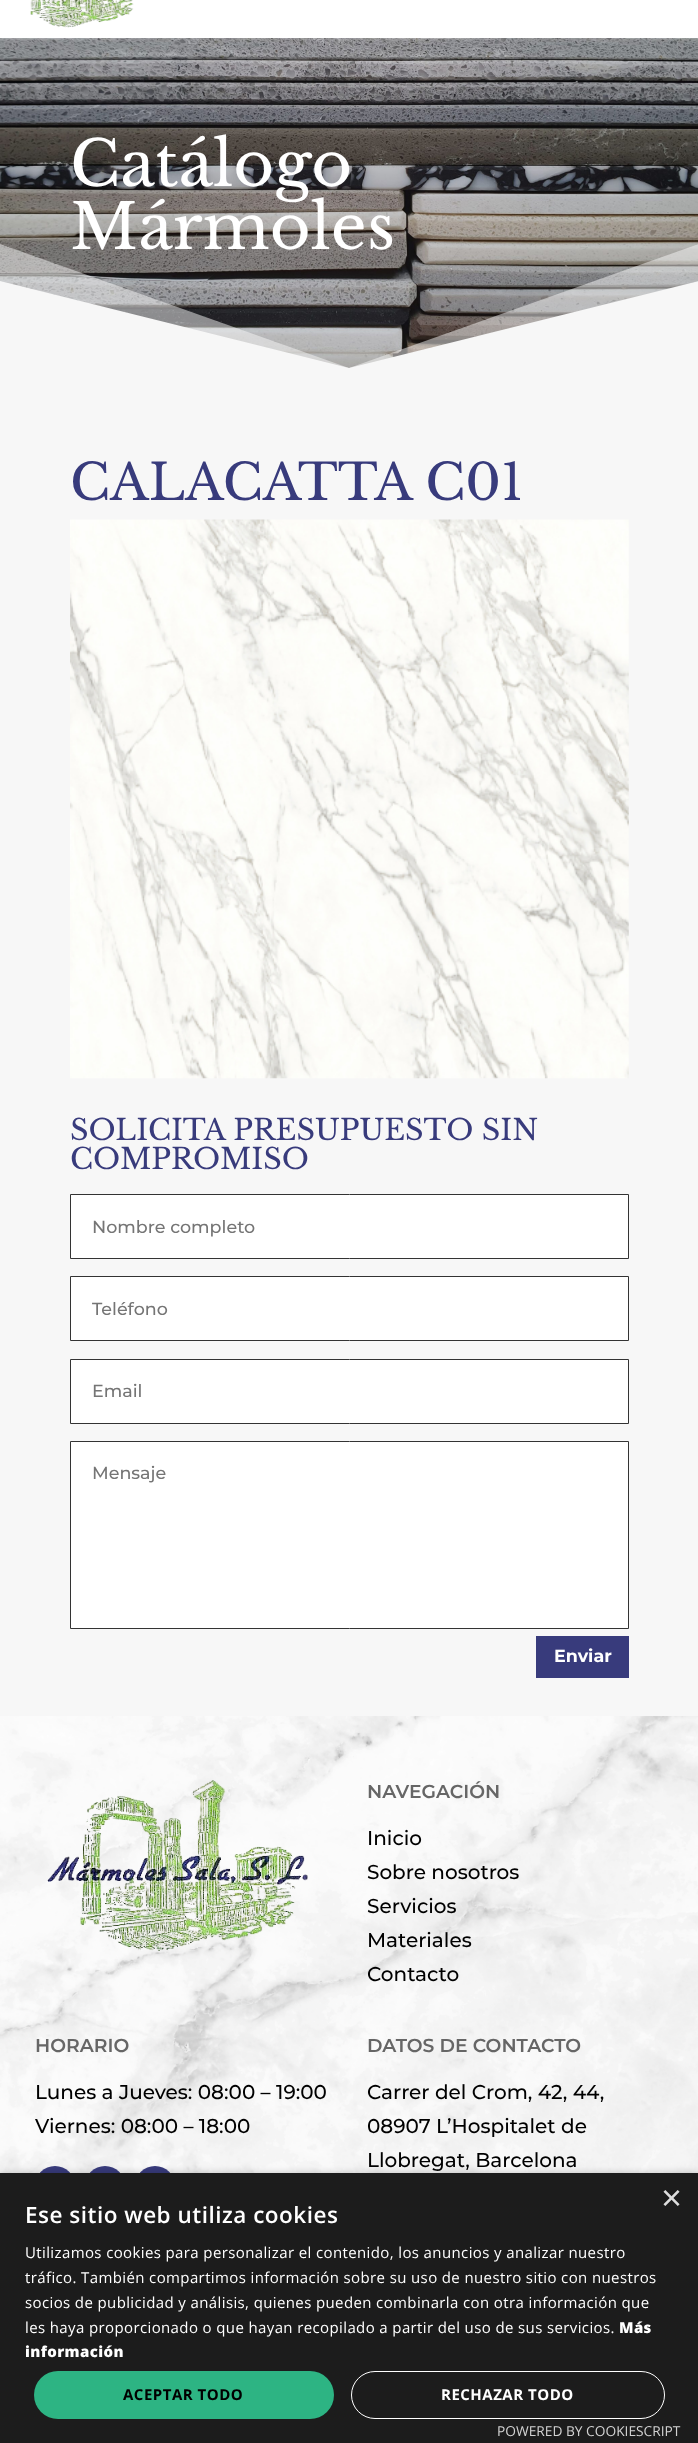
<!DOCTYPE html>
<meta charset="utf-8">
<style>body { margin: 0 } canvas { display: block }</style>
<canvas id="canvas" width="698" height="2443"></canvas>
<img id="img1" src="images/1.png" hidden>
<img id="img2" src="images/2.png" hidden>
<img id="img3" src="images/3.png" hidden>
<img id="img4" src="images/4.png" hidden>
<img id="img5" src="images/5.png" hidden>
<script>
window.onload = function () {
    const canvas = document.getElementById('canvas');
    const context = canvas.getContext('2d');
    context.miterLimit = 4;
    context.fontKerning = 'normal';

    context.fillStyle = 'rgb(255, 255, 255)';
    context.fillRect(0, 0, 698, 2443);
    context.drawImage(document.getElementById('img1'), 30, 0, 104, 28);
    context.drawImage(document.getElementById('img2'), 0, 38, 698, 330);
    context.fillStyle = 'rgba(247, 247, 247, 0.5)';
    context.beginPath();
    context.moveTo(349, 368);
    context.lineTo(0, 244);
    context.lineTo(0, 369);
    context.lineTo(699, 369);
    context.lineTo(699, 244);
    context.closePath();
    context.fill();
    context.fillStyle = 'rgb(247, 247, 247)';
    context.beginPath();
    context.moveTo(349, 368);
    context.lineTo(0, 281);
    context.lineTo(0, 369);
    context.lineTo(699, 369);
    context.lineTo(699, 281);
    context.closePath();
    context.fill();
    context.fillRect(0, 369, 698, 1347);
    context.drawImage(document.getElementById('img3'), 70, 519, 559, 560);
    context.fillStyle = 'rgb(255, 255, 255)';
    context.beginPath();
    context.rect(70.5, 1194.5, 558, 64);
    context.fill();
    context.strokeStyle = 'rgb(51, 51, 51)';
    context.stroke();
    context.beginPath();
    context.rect(70.5, 1276.5, 558, 64);
    context.fill();
    context.stroke();
    context.beginPath();
    context.rect(70.5, 1359.5, 558, 64);
    context.fill();
    context.stroke();
    context.beginPath();
    context.rect(70.5, 1441.5, 558, 187);
    context.fill();
    context.stroke();
    context.fillStyle = 'rgb(56, 59, 124)';
    context.fillRect(536, 1636, 93, 42);
    context.drawImage(document.getElementById('img4'), 0, 1716, 698, 457);
    context.drawImage(document.getElementById('img5'), 47, 1780, 261, 171);
    context.beginPath();
    context.arc(55, 2186, 20, 0, 2 * Math.PI);
    context.fill();
    context.beginPath();
    context.arc(105, 2186, 20, 0, 2 * Math.PI);
    context.fill();
    context.beginPath();
    context.arc(155, 2186, 20, 0, 2 * Math.PI);
    context.fill();
    context.fillStyle = 'rgba(0, 0, 0, 0.35)';
    context.filter = 'blur(5px)';
    context.beginPath();
    context.rect(1, 2175, 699, 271);
    context.fill();
    context.filter = 'none';
    context.fillStyle = 'rgb(28, 28, 28)';
    context.fillRect(0, 2173, 698, 270);
    context.fillStyle = 'rgb(45, 180, 131)';
    context.beginPath();
    context.roundRect(34, 2371, 300, 48, 24);
    context.fill();
    context.beginPath();
    context.roundRect(351.5, 2371.5, 313, 47, 23.5);
    context.strokeStyle = 'rgb(255, 255, 255)';
    context.stroke();
    context.font = '62.5px Libre Baskerville';
    context.fillStyle = 'rgb(255, 255, 255)';
    context.fillText('Catálogo', 70, 186);
    context.fillText('Mármoles', 70, 249);
    context.font = '50px Libre Baskerville';
    context.fillStyle = 'rgb(56, 59, 124)';
    context.fillText('CALACATTA C01', 70, 500);
    context.font = '28.75px Libre Baskerville';
    context.fillText('SOLICITA PRESUPUESTO SIN', 70, 1140);
    context.fillText('COMPROMISO', 70, 1169);
    context.font = '500 17.5px Montserrat';
    context.fillStyle = 'rgb(117, 117, 117)';
    context.fillText('Nombre completo', 92, 1233);
    context.fillText('Teléfono', 92, 1315);
    context.fillText('Email', 92, 1397);
    context.fillText('Mensaje', 92, 1479);
    context.font = 'bold 17.5px Montserrat';
    context.fillStyle = 'rgb(255, 255, 255)';
    context.fillText('Enviar', 554, 1662);
    context.font = '600 18.75px Montserrat';
    context.fillStyle = 'rgb(102, 102, 102)';
    context.fillText('NAVEGACIÓN', 367, 1798);
    context.font = '500 20px Montserrat';
    context.fillStyle = 'rgb(0, 0, 0)';
    context.fillText('Inicio', 367, 1845);
    context.fillText('Sobre nosotros', 367, 1879);
    context.fillText('Servicios', 367, 1913);
    context.fillText('Materiales', 367, 1947);
    context.fillText('Contacto', 367, 1981);
    context.font = '600 18.75px Montserrat';
    context.fillStyle = 'rgb(102, 102, 102)';
    context.fillText('HORARIO', 35, 2052);
    context.font = '500 20px Montserrat';
    context.fillStyle = 'rgb(0, 0, 0)';
    context.fillText('Lunes a Jueves: 08:00 – 19:00', 35, 2099);
    context.fillText('Viernes: 08:00 – 18:00', 35, 2133);
    context.font = '600 18.75px Montserrat';
    context.fillStyle = 'rgb(102, 102, 102)';
    context.fillText('DATOS DE CONTACTO', 367, 2052);
    context.font = '500 20px Montserrat';
    context.fillStyle = 'rgb(0, 0, 0)';
    context.fillText('Carrer del Crom, 42, 44,', 367, 2099);
    context.fillText('08907 L’Hospitalet de', 367, 2133);
    context.fillText('Llobregat, Barcelona', 367, 2167);
    context.font = '36px Liberation Sans';
    context.fillStyle = 'rgb(221, 221, 221)';
    context.fillText('×', 661, 2210);
    context.letterSpacing = '0.5px';
    context.font = '600 22.5px Open Sans';
    context.fillStyle = 'rgb(255, 255, 255)';
    context.fillText('Ese sitio web utiliza cookies', 25, 2223);
    context.letterSpacing = '0.38px';
    context.font = '15px Open Sans';
    context.fillText('Utilizamos cookies para personalizar el contenido, los anuncios y analizar nuestro', 25, 2258);
    context.fillText('tráfico. También compartimos información sobre su uso de nuestro sitio con nuestros', 25, 2283);
    context.fillText('socios de publicidad y análisis, quienes pueden combinarla con otra información que', 25, 2308);
    context.fillText('les haya proporcionado o que hayan recopilado a partir del uso de sus servicios.', 25, 2333);
    context.font = '800 15px Open Sans';
    context.fillText('Más', 619, 2333);
    context.fillText('información', 25, 2357);
    context.letterSpacing = '0.5px';
    context.font = 'bold 15px Open Sans';
    context.fillStyle = 'rgb(0, 0, 0)';
    context.fillText('ACEPTAR TODO', 123, 2400);
    context.fillStyle = 'rgb(255, 255, 255)';
    context.fillText('RECHAZAR TODO', 441, 2400);
    context.letterSpacing = '0px';
    context.font = '13.75px Open Sans';
    context.fillStyle = 'rgb(210, 210, 210)';
    context.fillText('POWERED BY COOKIESCRIPT', 497, 2436);
};
</script>
